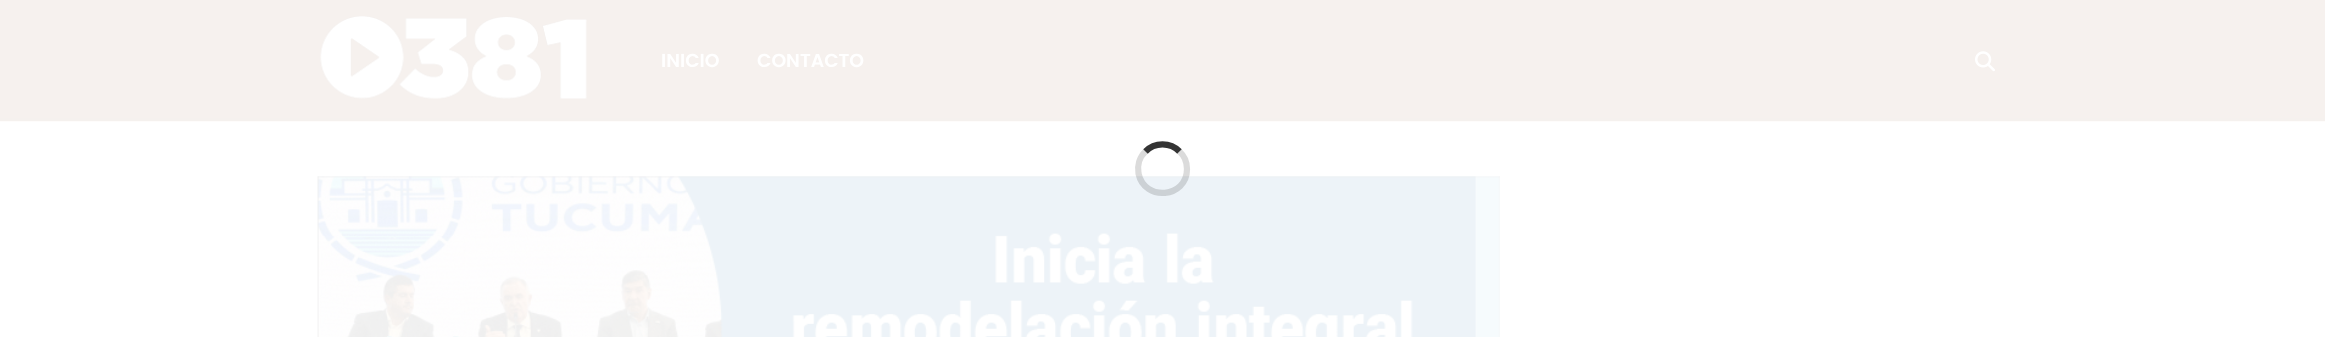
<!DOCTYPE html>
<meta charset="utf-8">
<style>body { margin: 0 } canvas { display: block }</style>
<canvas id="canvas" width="2325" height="337"></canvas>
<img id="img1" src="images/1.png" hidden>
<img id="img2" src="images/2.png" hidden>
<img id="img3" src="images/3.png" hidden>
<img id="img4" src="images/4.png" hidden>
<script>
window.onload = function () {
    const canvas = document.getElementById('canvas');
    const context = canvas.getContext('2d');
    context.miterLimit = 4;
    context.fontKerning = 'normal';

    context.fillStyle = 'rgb(255, 255, 255)';
    context.fillRect(0, 0, 2325, 337);
    context.drawImage(document.getElementById('img1'), 0, 0, 2325, 122);
    context.drawImage(document.getElementById('img2'), 320, 16, 267, 83);
    context.drawImage(document.getElementById('img3'), 1975, 51, 20, 21);
    context.beginPath();
    context.moveTo(1145.5, 151.5);
    context.bezierCurveTo(1154.5, 142, 1170.5, 142, 1179.5, 151.5);
    context.strokeStyle = 'rgb(52, 52, 52)';
    context.lineWidth = 6.2;
    context.stroke();
    context.drawImage(document.getElementById('img4'), 317, 176, 1183, 161);
    context.beginPath();
    context.moveTo(1179.5, 151.5);
    context.bezierCurveTo(1184.5, 156, 1187, 162.5, 1187, 169);
    context.bezierCurveTo(1187, 198, 1144.5, 202, 1138.5, 173.5);
    context.bezierCurveTo(1137, 165.5, 1139.5, 157, 1145.5, 151.5);
    context.strokeStyle = 'rgba(29, 29, 29, 0.16)';
    context.stroke();
    context.font = '600 18.75px Poppins';
    context.fillText('INICIO', 661, 67);
    context.fillText('CONTACTO', 757, 67);
};
</script>
